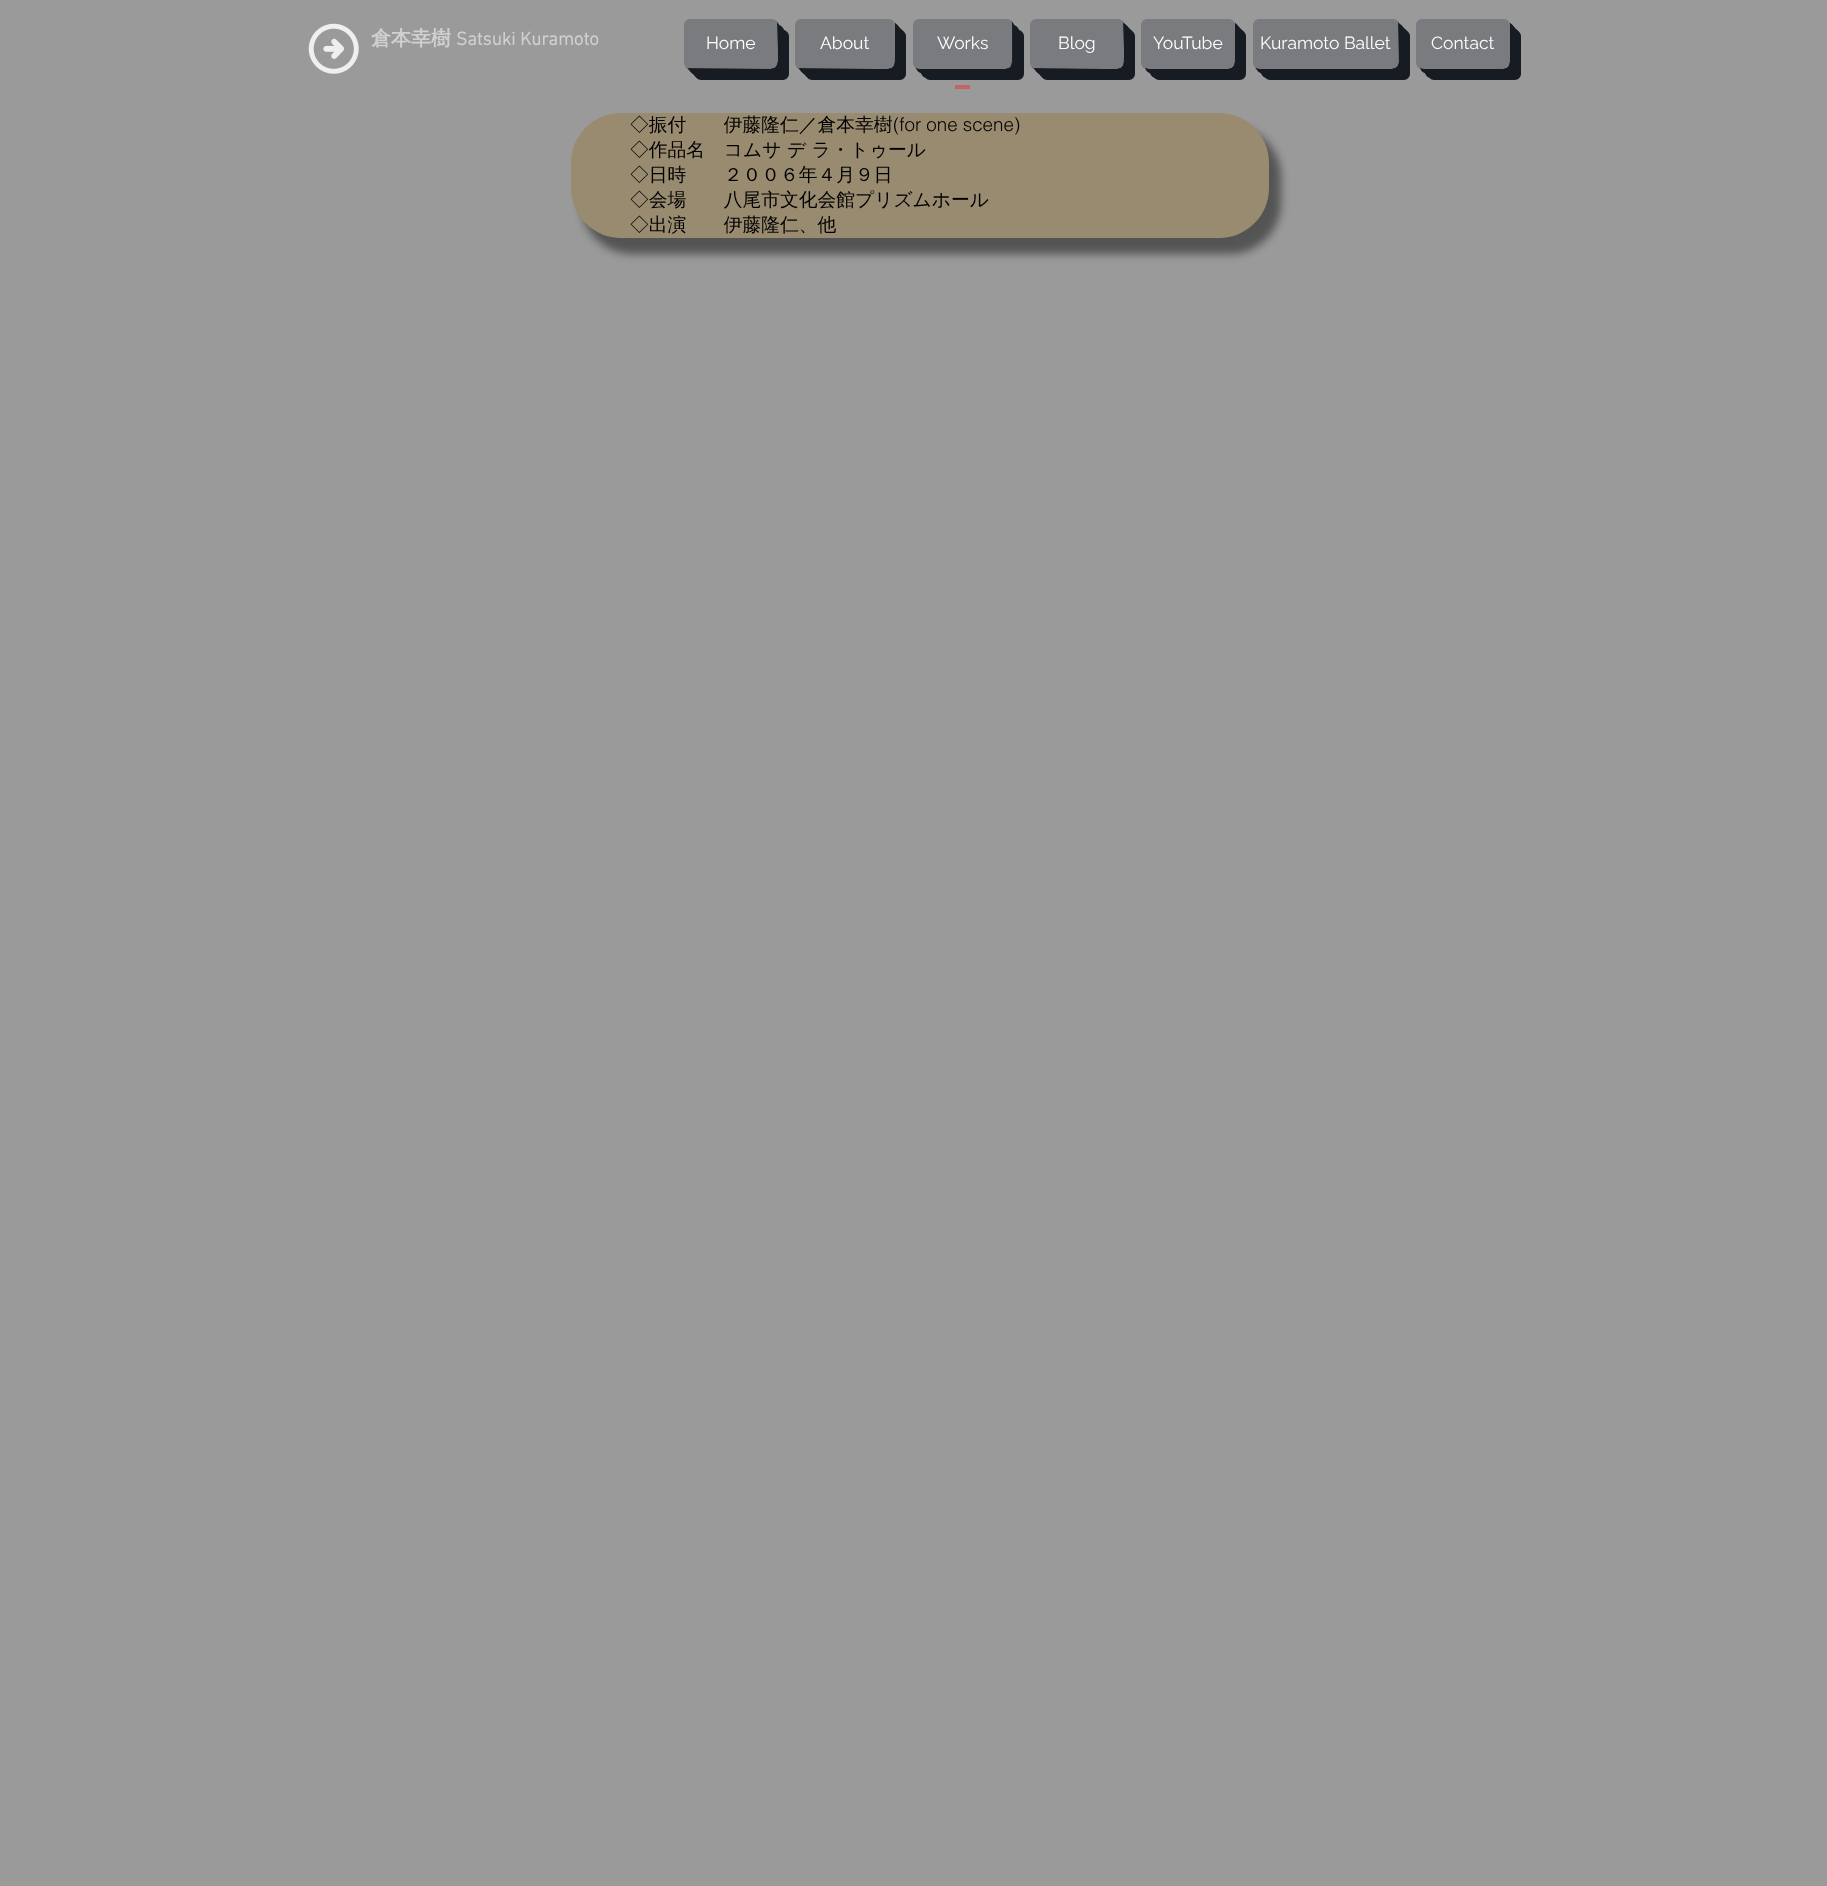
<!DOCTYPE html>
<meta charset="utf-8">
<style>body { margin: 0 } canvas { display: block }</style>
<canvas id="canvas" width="1827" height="1886"></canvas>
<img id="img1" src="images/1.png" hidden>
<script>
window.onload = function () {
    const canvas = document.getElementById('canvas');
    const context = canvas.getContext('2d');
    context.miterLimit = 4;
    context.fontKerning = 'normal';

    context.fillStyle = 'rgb(154, 154, 154)';
    context.fillRect(0, 0, 1827, 1886);
    context.drawImage(document.getElementById('img1'), 308, 23, 51, 51);
    context.fillStyle = 'rgb(23, 27, 34)';
    context.beginPath();
    context.moveTo(695, 69);
    context.lineTo(695, 74);
    context.bezierCurveTo(695, 77, 698, 80, 701, 80);
    context.lineTo(783, 80);
    context.bezierCurveTo(786, 80, 789, 77, 789, 74);
    context.lineTo(789, 36);
    context.bezierCurveTo(789, 33, 786, 30, 783, 30);
    context.lineTo(778, 30);
    context.lineTo(778, 62);
    context.bezierCurveTo(778, 66, 775, 69, 771, 69);
    context.closePath();
    context.fill();
    context.beginPath();
    context.moveTo(693, 69);
    context.lineTo(693, 72);
    context.bezierCurveTo(693, 75, 696, 78, 699, 78);
    context.lineTo(780, 78);
    context.bezierCurveTo(783, 78, 786, 75, 786, 72);
    context.lineTo(786, 34);
    context.bezierCurveTo(786, 31, 783, 28, 780, 28);
    context.lineTo(778, 28);
    context.lineTo(778, 62);
    context.bezierCurveTo(778, 66, 775, 69, 771, 69);
    context.closePath();
    context.fill();
    context.beginPath();
    context.moveTo(690, 69);
    context.bezierCurveTo(690, 72, 693, 75, 696, 75);
    context.lineTo(778, 75);
    context.bezierCurveTo(781, 75, 784, 72, 784, 69);
    context.lineTo(784, 31);
    context.bezierCurveTo(784, 28, 781, 25, 778, 25);
    context.lineTo(778, 62);
    context.bezierCurveTo(778, 66, 775, 69, 771, 69);
    context.closePath();
    context.fill();
    context.beginPath();
    context.moveTo(688, 68);
    context.bezierCurveTo(689, 71, 691, 73, 694, 73);
    context.lineTo(775, 73);
    context.bezierCurveTo(778, 73, 781, 70, 781, 67);
    context.lineTo(781, 29);
    context.bezierCurveTo(781, 27, 779, 24, 777, 23);
    context.lineTo(778, 50);
    context.bezierCurveTo(778, 55, 780, 69, 771, 69);
    context.closePath();
    context.fill();
    context.beginPath();
    context.moveTo(686, 67);
    context.bezierCurveTo(687, 69, 689, 70, 691, 70);
    context.lineTo(773, 70);
    context.bezierCurveTo(776, 70, 779, 67, 779, 64);
    context.lineTo(779, 26);
    context.bezierCurveTo(779, 24, 778, 22, 776, 21);
    context.bezierCurveTo(777, 22, 778, 23, 778, 25);
    context.lineTo(778, 62);
    context.bezierCurveTo(778, 66, 775, 69, 771, 69);
    context.lineTo(690, 69);
    context.bezierCurveTo(688, 69, 687, 68, 686, 67);
    context.closePath();
    context.fill();
    context.fillStyle = 'rgba(45, 54, 67, 0.3)';
    context.beginPath();
    context.roundRect(684, 19, 94, 50, 6);
    context.fill();
    context.fillStyle = 'rgb(23, 27, 34)';
    context.beginPath();
    context.moveTo(806, 69);
    context.lineTo(806, 74);
    context.bezierCurveTo(806, 77, 809, 80, 812, 80);
    context.lineTo(900, 80);
    context.bezierCurveTo(903, 80, 906, 77, 906, 74);
    context.lineTo(906, 36);
    context.bezierCurveTo(906, 33, 903, 30, 900, 30);
    context.lineTo(895, 30);
    context.lineTo(895, 62);
    context.bezierCurveTo(895, 66, 892, 69, 889, 69);
    context.closePath();
    context.fill();
    context.beginPath();
    context.moveTo(804, 69);
    context.lineTo(804, 72);
    context.bezierCurveTo(804, 75, 807, 78, 810, 78);
    context.lineTo(898, 78);
    context.bezierCurveTo(901, 78, 904, 75, 904, 72);
    context.lineTo(904, 34);
    context.bezierCurveTo(904, 31, 901, 28, 898, 28);
    context.lineTo(895, 28);
    context.lineTo(895, 62);
    context.bezierCurveTo(895, 66, 892, 69, 889, 69);
    context.closePath();
    context.fill();
    context.beginPath();
    context.moveTo(801, 69);
    context.bezierCurveTo(801, 72, 804, 75, 807, 75);
    context.lineTo(895, 75);
    context.bezierCurveTo(898, 75, 901, 72, 901, 69);
    context.lineTo(901, 31);
    context.bezierCurveTo(901, 28, 898, 25, 895, 25);
    context.lineTo(895, 64);
    context.bezierCurveTo(893, 72, 878, 69, 874, 69);
    context.closePath();
    context.fill();
    context.beginPath();
    context.moveTo(799, 68);
    context.bezierCurveTo(800, 71, 802, 73, 805, 73);
    context.lineTo(893, 73);
    context.bezierCurveTo(896, 73, 899, 70, 899, 67);
    context.lineTo(899, 29);
    context.bezierCurveTo(899, 26, 897, 24, 895, 23);
    context.lineTo(895, 50);
    context.bezierCurveTo(895, 71, 896, 69, 874, 69);
    context.closePath();
    context.fill();
    context.beginPath();
    context.moveTo(797, 67);
    context.bezierCurveTo(798, 69, 800, 70, 802, 70);
    context.lineTo(890, 70);
    context.bezierCurveTo(893, 70, 896, 67, 896, 64);
    context.lineTo(896, 26);
    context.bezierCurveTo(896, 24, 895, 23, 894, 21);
    context.bezierCurveTo(895, 22, 895, 24, 895, 25);
    context.lineTo(895, 62);
    context.bezierCurveTo(895, 66, 892, 69, 889, 69);
    context.lineTo(801, 69);
    context.bezierCurveTo(799, 69, 798, 68, 797, 67);
    context.closePath();
    context.fill();
    context.fillStyle = 'rgba(45, 54, 67, 0.3)';
    context.beginPath();
    context.roundRect(795, 19, 100, 50, 6);
    context.fill();
    context.fillStyle = 'rgb(23, 27, 34)';
    context.beginPath();
    context.moveTo(924, 69);
    context.lineTo(924, 74);
    context.bezierCurveTo(924, 77, 927, 80, 930, 80);
    context.lineTo(1018, 80);
    context.bezierCurveTo(1021, 80, 1024, 77, 1024, 74);
    context.lineTo(1024, 36);
    context.bezierCurveTo(1024, 33, 1021, 30, 1018, 30);
    context.lineTo(1012, 30);
    context.lineTo(1012, 62);
    context.bezierCurveTo(1012, 66, 1010, 69, 1006, 69);
    context.closePath();
    context.fill();
    context.beginPath();
    context.moveTo(921, 69);
    context.lineTo(921, 72);
    context.bezierCurveTo(921, 75, 924, 78, 927, 78);
    context.lineTo(1015, 78);
    context.bezierCurveTo(1018, 78, 1021, 75, 1021, 72);
    context.lineTo(1021, 34);
    context.bezierCurveTo(1021, 31, 1018, 28, 1015, 28);
    context.lineTo(1012, 28);
    context.lineTo(1012, 62);
    context.bezierCurveTo(1012, 66, 1010, 69, 1006, 69);
    context.closePath();
    context.fill();
    context.beginPath();
    context.moveTo(919, 69);
    context.bezierCurveTo(919, 72, 922, 75, 925, 75);
    context.lineTo(1013, 75);
    context.bezierCurveTo(1016, 75, 1019, 72, 1019, 69);
    context.lineTo(1019, 31);
    context.bezierCurveTo(1019, 28, 1016, 25, 1013, 25);
    context.lineTo(1012, 25);
    context.lineTo(1012, 62);
    context.bezierCurveTo(1012, 66, 1010, 69, 1006, 69);
    context.closePath();
    context.fill();
    context.beginPath();
    context.moveTo(916, 68);
    context.bezierCurveTo(917, 71, 919, 73, 922, 73);
    context.lineTo(1010, 73);
    context.bezierCurveTo(1013, 73, 1016, 70, 1016, 67);
    context.lineTo(1016, 29);
    context.bezierCurveTo(1016, 27, 1014, 24, 1012, 23);
    context.lineTo(1012, 50);
    context.bezierCurveTo(1012, 71, 1014, 69, 992, 69);
    context.lineTo(933, 69);
    context.bezierCurveTo(928, 69, 921, 71, 916, 68);
    context.closePath();
    context.fill();
    context.beginPath();
    context.moveTo(915, 68);
    context.bezierCurveTo(916, 69, 918, 70, 920, 70);
    context.lineTo(1008, 70);
    context.bezierCurveTo(1011, 70, 1014, 67, 1014, 64);
    context.lineTo(1014, 26);
    context.bezierCurveTo(1014, 24, 1013, 22, 1011, 21);
    context.bezierCurveTo(1012, 22, 1012, 23, 1012, 25);
    context.lineTo(1012, 62);
    context.bezierCurveTo(1012, 66, 1010, 69, 1006, 69);
    context.lineTo(919, 69);
    context.bezierCurveTo(917, 69, 916, 68, 915, 68);
    context.closePath();
    context.fill();
    context.fillStyle = 'rgba(45, 54, 67, 0.3)';
    context.beginPath();
    context.roundRect(913, 19, 100, 50, 6);
    context.fill();
    context.fillStyle = 'rgb(23, 27, 34)';
    context.beginPath();
    context.moveTo(1041, 69);
    context.lineTo(1041, 74);
    context.bezierCurveTo(1041, 77, 1044, 80, 1047, 80);
    context.lineTo(1129, 80);
    context.bezierCurveTo(1132, 80, 1135, 77, 1135, 74);
    context.lineTo(1135, 36);
    context.bezierCurveTo(1135, 33, 1132, 30, 1129, 30);
    context.lineTo(1124, 30);
    context.lineTo(1124, 62);
    context.bezierCurveTo(1124, 66, 1121, 69, 1118, 69);
    context.closePath();
    context.fill();
    context.beginPath();
    context.moveTo(1039, 69);
    context.lineTo(1039, 72);
    context.bezierCurveTo(1039, 75, 1042, 78, 1045, 78);
    context.lineTo(1127, 78);
    context.bezierCurveTo(1130, 78, 1133, 75, 1133, 72);
    context.lineTo(1133, 34);
    context.bezierCurveTo(1133, 31, 1130, 28, 1127, 28);
    context.lineTo(1124, 28);
    context.lineTo(1124, 62);
    context.bezierCurveTo(1124, 66, 1121, 69, 1118, 69);
    context.closePath();
    context.fill();
    context.beginPath();
    context.moveTo(1036, 69);
    context.bezierCurveTo(1036, 72, 1039, 75, 1042, 75);
    context.lineTo(1124, 75);
    context.bezierCurveTo(1127, 75, 1130, 72, 1130, 69);
    context.lineTo(1130, 31);
    context.bezierCurveTo(1130, 28, 1127, 25, 1124, 25);
    context.lineTo(1124, 64);
    context.bezierCurveTo(1122, 72, 1108, 69, 1104, 69);
    context.closePath();
    context.fill();
    context.beginPath();
    context.moveTo(1034, 68);
    context.bezierCurveTo(1035, 71, 1037, 73, 1040, 73);
    context.lineTo(1122, 73);
    context.bezierCurveTo(1125, 73, 1128, 70, 1128, 67);
    context.lineTo(1128, 29);
    context.bezierCurveTo(1128, 26, 1126, 24, 1123, 23);
    context.lineTo(1124, 50);
    context.bezierCurveTo(1124, 71, 1125, 69, 1104, 69);
    context.closePath();
    context.fill();
    context.beginPath();
    context.moveTo(1032, 67);
    context.bezierCurveTo(1033, 69, 1035, 70, 1037, 70);
    context.lineTo(1119, 70);
    context.bezierCurveTo(1122, 70, 1125, 67, 1125, 64);
    context.lineTo(1125, 26);
    context.bezierCurveTo(1125, 24, 1124, 22, 1122, 21);
    context.bezierCurveTo(1123, 22, 1124, 23, 1124, 25);
    context.lineTo(1124, 62);
    context.bezierCurveTo(1124, 66, 1121, 69, 1118, 69);
    context.lineTo(1036, 69);
    context.bezierCurveTo(1034, 69, 1033, 68, 1032, 67);
    context.closePath();
    context.fill();
    context.fillStyle = 'rgba(45, 54, 67, 0.3)';
    context.beginPath();
    context.roundRect(1030, 19, 94, 50, 6);
    context.fill();
    context.fillStyle = 'rgb(23, 27, 34)';
    context.beginPath();
    context.moveTo(1153, 69);
    context.lineTo(1153, 74);
    context.bezierCurveTo(1153, 77, 1156, 80, 1159, 80);
    context.lineTo(1240, 80);
    context.bezierCurveTo(1243, 80, 1246, 77, 1246, 74);
    context.lineTo(1246, 36);
    context.bezierCurveTo(1246, 33, 1243, 30, 1240, 30);
    context.lineTo(1235, 30);
    context.lineTo(1235, 62);
    context.bezierCurveTo(1235, 66, 1232, 69, 1229, 69);
    context.closePath();
    context.fill();
    context.beginPath();
    context.moveTo(1150, 69);
    context.lineTo(1150, 72);
    context.bezierCurveTo(1150, 75, 1153, 78, 1156, 78);
    context.lineTo(1238, 78);
    context.bezierCurveTo(1241, 78, 1244, 75, 1244, 72);
    context.lineTo(1244, 34);
    context.bezierCurveTo(1244, 31, 1241, 28, 1238, 28);
    context.lineTo(1235, 28);
    context.lineTo(1235, 62);
    context.bezierCurveTo(1235, 66, 1232, 69, 1229, 69);
    context.closePath();
    context.fill();
    context.beginPath();
    context.moveTo(1148, 69);
    context.bezierCurveTo(1148, 72, 1151, 75, 1154, 75);
    context.lineTo(1235, 75);
    context.bezierCurveTo(1238, 75, 1241, 72, 1241, 69);
    context.lineTo(1241, 31);
    context.bezierCurveTo(1241, 28, 1238, 25, 1235, 25);
    context.lineTo(1235, 62);
    context.bezierCurveTo(1235, 66, 1232, 69, 1229, 69);
    context.closePath();
    context.fill();
    context.beginPath();
    context.moveTo(1145, 68);
    context.bezierCurveTo(1146, 71, 1148, 73, 1151, 73);
    context.lineTo(1233, 73);
    context.bezierCurveTo(1236, 73, 1239, 70, 1239, 67);
    context.lineTo(1239, 29);
    context.bezierCurveTo(1239, 26, 1237, 24, 1235, 23);
    context.lineTo(1235, 50);
    context.bezierCurveTo(1235, 71, 1237, 69, 1215, 69);
    context.lineTo(1161, 69);
    context.bezierCurveTo(1156, 69, 1150, 70, 1145, 68);
    context.closePath();
    context.fill();
    context.beginPath();
    context.moveTo(1145, 68);
    context.bezierCurveTo(1146, 69, 1147, 70, 1149, 70);
    context.lineTo(1230, 70);
    context.bezierCurveTo(1233, 70, 1236, 67, 1236, 64);
    context.lineTo(1236, 26);
    context.bezierCurveTo(1236, 24, 1235, 23, 1234, 21);
    context.bezierCurveTo(1235, 22, 1235, 24, 1235, 25);
    context.lineTo(1235, 62);
    context.bezierCurveTo(1235, 66, 1232, 69, 1229, 69);
    context.lineTo(1148, 69);
    context.closePath();
    context.fill();
    context.fillStyle = 'rgba(45, 54, 67, 0.3)';
    context.beginPath();
    context.roundRect(1141, 19, 94, 50, 6);
    context.fill();
    context.fillStyle = 'rgb(23, 27, 34)';
    context.beginPath();
    context.moveTo(1264, 69);
    context.lineTo(1264, 74);
    context.bezierCurveTo(1264, 77, 1267, 80, 1270, 80);
    context.lineTo(1404, 80);
    context.bezierCurveTo(1407, 80, 1410, 77, 1410, 74);
    context.lineTo(1410, 36);
    context.bezierCurveTo(1410, 33, 1407, 30, 1404, 30);
    context.lineTo(1399, 30);
    context.lineTo(1399, 62);
    context.bezierCurveTo(1399, 66, 1396, 69, 1392, 69);
    context.closePath();
    context.fill();
    context.beginPath();
    context.moveTo(1261, 69);
    context.lineTo(1261, 72);
    context.bezierCurveTo(1261, 75, 1264, 78, 1267, 78);
    context.lineTo(1402, 78);
    context.bezierCurveTo(1405, 78, 1408, 75, 1408, 72);
    context.lineTo(1408, 34);
    context.bezierCurveTo(1408, 31, 1405, 28, 1402, 28);
    context.lineTo(1399, 28);
    context.lineTo(1399, 62);
    context.bezierCurveTo(1399, 66, 1396, 69, 1392, 69);
    context.closePath();
    context.fill();
    context.beginPath();
    context.moveTo(1259, 69);
    context.bezierCurveTo(1259, 72, 1262, 75, 1265, 75);
    context.lineTo(1399, 75);
    context.bezierCurveTo(1402, 75, 1405, 72, 1405, 69);
    context.lineTo(1405, 31);
    context.bezierCurveTo(1405, 28, 1402, 25, 1399, 25);
    context.lineTo(1399, 62);
    context.bezierCurveTo(1399, 66, 1396, 69, 1392, 69);
    context.closePath();
    context.fill();
    context.beginPath();
    context.moveTo(1256, 68);
    context.bezierCurveTo(1257, 71, 1259, 73, 1262, 73);
    context.lineTo(1397, 73);
    context.bezierCurveTo(1400, 73, 1403, 70, 1403, 67);
    context.lineTo(1403, 29);
    context.bezierCurveTo(1403, 26, 1401, 24, 1398, 23);
    context.lineTo(1399, 64);
    context.bezierCurveTo(1397, 73, 1379, 69, 1370, 69);
    context.lineTo(1259, 69);
    context.closePath();
    context.fill();
    context.beginPath();
    context.moveTo(1255, 68);
    context.bezierCurveTo(1256, 69, 1258, 70, 1260, 70);
    context.lineTo(1394, 70);
    context.bezierCurveTo(1397, 70, 1400, 67, 1400, 64);
    context.lineTo(1400, 26);
    context.bezierCurveTo(1400, 24, 1399, 22, 1397, 21);
    context.bezierCurveTo(1398, 22, 1399, 23, 1399, 25);
    context.lineTo(1399, 62);
    context.bezierCurveTo(1399, 66, 1396, 69, 1392, 69);
    context.lineTo(1259, 69);
    context.bezierCurveTo(1257, 69, 1256, 68, 1255, 68);
    context.closePath();
    context.fill();
    context.fillStyle = 'rgba(45, 54, 67, 0.3)';
    context.beginPath();
    context.roundRect(1253, 19, 146, 50, 6);
    context.fill();
    context.fillStyle = 'rgb(23, 27, 34)';
    context.beginPath();
    context.moveTo(1428, 69);
    context.lineTo(1428, 74);
    context.bezierCurveTo(1428, 77, 1431, 80, 1434, 80);
    context.lineTo(1515, 80);
    context.bezierCurveTo(1518, 80, 1521, 77, 1521, 74);
    context.lineTo(1521, 36);
    context.bezierCurveTo(1521, 33, 1518, 30, 1515, 30);
    context.lineTo(1510, 30);
    context.lineTo(1510, 62);
    context.bezierCurveTo(1510, 66, 1507, 69, 1504, 69);
    context.closePath();
    context.fill();
    context.beginPath();
    context.moveTo(1425, 69);
    context.lineTo(1425, 72);
    context.bezierCurveTo(1425, 75, 1428, 78, 1431, 78);
    context.lineTo(1513, 78);
    context.bezierCurveTo(1516, 78, 1519, 75, 1519, 72);
    context.lineTo(1519, 34);
    context.bezierCurveTo(1519, 31, 1516, 28, 1513, 28);
    context.lineTo(1510, 28);
    context.lineTo(1510, 62);
    context.bezierCurveTo(1510, 66, 1507, 69, 1504, 69);
    context.closePath();
    context.fill();
    context.beginPath();
    context.moveTo(1423, 69);
    context.bezierCurveTo(1423, 72, 1426, 75, 1429, 75);
    context.lineTo(1510, 75);
    context.bezierCurveTo(1513, 75, 1516, 72, 1516, 69);
    context.lineTo(1516, 31);
    context.bezierCurveTo(1516, 28, 1513, 25, 1510, 25);
    context.lineTo(1510, 62);
    context.bezierCurveTo(1510, 66, 1507, 69, 1504, 69);
    context.closePath();
    context.fill();
    context.beginPath();
    context.moveTo(1420, 68);
    context.bezierCurveTo(1421, 71, 1423, 73, 1426, 73);
    context.lineTo(1508, 73);
    context.bezierCurveTo(1511, 73, 1514, 70, 1514, 67);
    context.lineTo(1514, 29);
    context.bezierCurveTo(1514, 26, 1512, 24, 1510, 23);
    context.lineTo(1510, 50);
    context.bezierCurveTo(1510, 71, 1512, 69, 1490, 69);
    context.lineTo(1436, 69);
    context.bezierCurveTo(1431, 69, 1425, 70, 1420, 68);
    context.closePath();
    context.fill();
    context.beginPath();
    context.moveTo(1420, 68);
    context.bezierCurveTo(1421, 69, 1422, 70, 1424, 70);
    context.lineTo(1505, 70);
    context.bezierCurveTo(1508, 70, 1511, 67, 1511, 64);
    context.lineTo(1511, 26);
    context.bezierCurveTo(1511, 24, 1510, 23, 1509, 21);
    context.bezierCurveTo(1510, 22, 1510, 24, 1510, 25);
    context.lineTo(1510, 62);
    context.bezierCurveTo(1510, 66, 1507, 69, 1504, 69);
    context.lineTo(1422, 69);
    context.closePath();
    context.fill();
    context.fillStyle = 'rgba(45, 54, 67, 0.3)';
    context.beginPath();
    context.roundRect(1416, 19, 94, 50, 6);
    context.fill();
    context.fillStyle = 'rgb(195, 101, 103)';
    context.fillRect(955, 85, 15, 4);
    context.fillStyle = 'rgba(0, 0, 0, 0.45)';
    context.filter = 'blur(4px)';
    context.beginPath();
    context.roundRect(581, 126, 700, 128, 51);
    context.fill();
    context.filter = 'none';
    context.fillStyle = 'rgb(153, 139, 112)';
    context.beginPath();
    context.roundRect(571, 113, 698, 125, 50);
    context.fill();
    context.font = 'bold 20px WenQuanYi Zen Hei';
    context.fillStyle = 'rgb(208, 208, 208)';
    context.fillText('倉本幸樹', 371, 45);
    context.font = 'bold 18.75px "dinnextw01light"';
    context.fillText('Satsuki Kuramoto', 456, 45);
    context.font = '17.5px Raleway';
    context.fillStyle = 'rgb(255, 255, 255)';
    context.fillText('Home', 706, 49);
    context.fillText('About', 820, 49);
    context.fillText('Works', 937, 49);
    context.fillText('Blog', 1058, 49);
    context.fillText('YouTube', 1153, 49);
    context.fillText('Kuramoto Ballet', 1260, 49);
    context.fillText('Contact', 1431, 49);
    context.font = '500 18.75px WenQuanYi Zen Hei';
    context.fillStyle = 'rgb(0, 0, 0)';
    context.fillText('◇振付　　伊藤隆仁／倉本幸樹', 630, 131);
    context.font = '300 18.75px helvetica';
    context.fillText('(for one scene)', 893, 131);
    context.font = '500 18.75px WenQuanYi Zen Hei';
    context.fillText('◇作品名　コムサ デ ラ・トゥール', 630, 156);
    context.fillText('◇日時　　２００６年４月９日', 630, 181);
    context.fillText('◇会場　　八尾市文化会館プリズムホール', 630, 206);
    context.fillText('◇出演　　伊藤隆仁、他', 630, 231);
};
</script>
